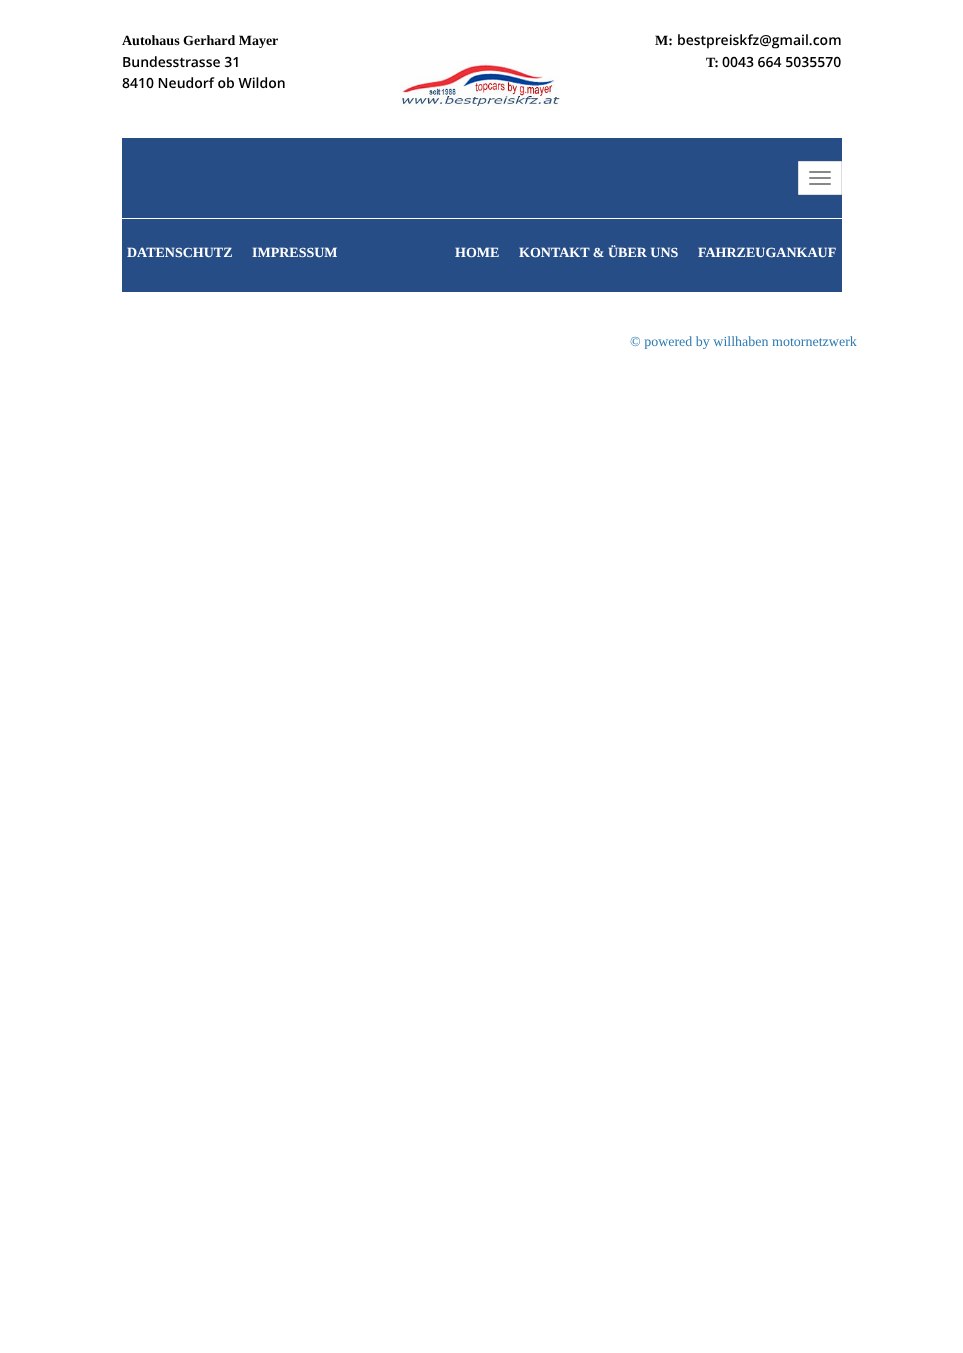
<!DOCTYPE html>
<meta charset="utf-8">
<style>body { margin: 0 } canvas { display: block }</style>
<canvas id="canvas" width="963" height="1353"></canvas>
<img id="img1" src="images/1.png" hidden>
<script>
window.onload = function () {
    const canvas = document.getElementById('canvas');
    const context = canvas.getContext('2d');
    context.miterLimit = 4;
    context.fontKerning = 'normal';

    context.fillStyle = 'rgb(255, 255, 255)';
    context.fillRect(0, 0, 963, 1353);
    context.drawImage(document.getElementById('img1'), 400, 60, 160, 51);
    context.fillStyle = 'rgb(39, 77, 135)';
    context.fillRect(122, 138, 720, 80);
    context.fillStyle = 'rgb(255, 255, 255)';
    context.beginPath();
    context.rect(798.5, 161.5, 43, 33);
    context.fill();
    context.strokeStyle = 'rgb(221, 221, 221)';
    context.stroke();
    context.fillStyle = 'rgb(136, 136, 136)';
    context.beginPath();
    context.roundRect(809, 171, 22, 2, 1);
    context.fill();
    context.beginPath();
    context.roundRect(809, 177, 22, 2, 1);
    context.fill();
    context.beginPath();
    context.roundRect(809, 183, 22, 2, 1);
    context.fill();
    context.fillStyle = 'rgb(39, 77, 135)';
    context.fillRect(122, 219, 720, 73);
    context.font = 'bold 14px Liberation Serif';
    context.fillStyle = 'rgb(0, 0, 0)';
    context.fillText('Autohaus Gerhard Mayer', 122, 45);
    context.font = '600 14px Open Sans';
    context.fillText('Bundesstrasse 31', 122, 67);
    context.fillText('8410 Neudorf ob Wildon', 122, 88);
    context.font = 'bold 14px Liberation Serif';
    context.fillText('M:', 655, 45);
    context.font = '600 14px Open Sans';
    context.fillText('bestpreiskfz@gmail.com', 677, 45);
    context.font = 'bold 14px Liberation Serif';
    context.fillText('T:', 706, 67);
    context.font = '600 14px Open Sans';
    context.fillText('0043 664 5035570', 722, 67);
    context.font = 'bold 14px Liberation Serif';
    context.fillStyle = 'rgb(255, 255, 255)';
    context.fillText('DATENSCHUTZ', 127, 257);
    context.fillText('IMPRESSUM', 252, 257);
    context.fillText('HOME', 455, 257);
    context.fillText('KONTAKT & ÜBER UNS', 519, 257);
    context.fillText('FAHRZEUGANKAUF', 698, 257);
    context.font = '14px Liberation Serif';
    context.fillStyle = 'rgb(46, 123, 176)';
    context.fillText('© powered by willhaben motornetzwerk', 630, 346);
};
</script>
